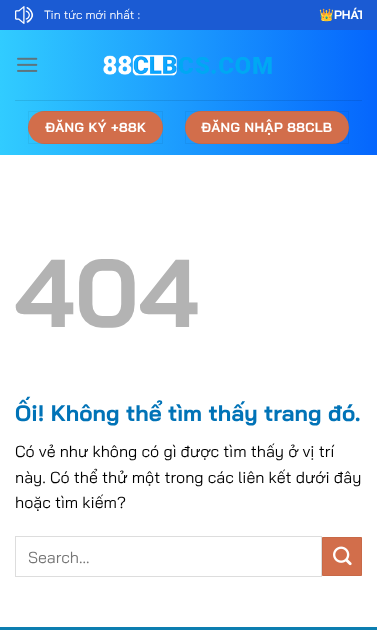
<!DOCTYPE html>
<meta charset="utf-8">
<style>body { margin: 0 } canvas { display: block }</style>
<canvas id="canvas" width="377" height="630"></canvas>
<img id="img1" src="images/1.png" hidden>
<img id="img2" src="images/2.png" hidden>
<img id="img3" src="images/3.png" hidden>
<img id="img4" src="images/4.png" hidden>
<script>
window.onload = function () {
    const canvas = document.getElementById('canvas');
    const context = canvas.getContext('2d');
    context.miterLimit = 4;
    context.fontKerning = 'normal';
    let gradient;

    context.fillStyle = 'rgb(255, 255, 255)';
    context.fillRect(0, 0, 377, 630);
    context.fillStyle = 'rgb(27, 91, 211)';
    context.fillRect(0, 0, 377, 30);
    context.drawImage(document.getElementById('img1'), 15, 6, 19, 18);
    gradient = context.createLinearGradient(0, 65, 377, 65);
    gradient.addColorStop(0, 'rgb(49, 204, 255)');
    gradient.addColorStop(1, 'rgb(5, 102, 253)');
    context.fillStyle = gradient;
    context.fillRect(0, 30, 377, 70);
    context.drawImage(document.getElementById('img2'), 17, 57, 21, 15);
    context.drawImage(document.getElementById('img3'), 103, 55, 169, 21);
    gradient = context.createLinearGradient(0, 128, 377, 127);
    gradient.addColorStop(0, 'rgb(49, 204, 255)');
    gradient.addColorStop(1, 'rgb(5, 102, 253)');
    context.fillStyle = gradient;
    context.fillRect(0, 100, 377, 55);
    gradient = context.createLinearGradient(0, 128, 377, 127);
    gradient.addColorStop(0, 'rgb(44, 184, 230)');
    gradient.addColorStop(1, 'rgb(5, 92, 228)');
    context.fillStyle = gradient;
    context.fillRect(15, 100, 347, 1);
    context.fillStyle = 'rgb(210, 110, 75)';
    context.beginPath();
    context.roundRect(28, 111, 135, 33, 16.5);
    context.fill();
    context.strokeStyle = 'rgba(0, 0, 0, 0.05)';
    context.strokeRect(28.5, 111.5, 134, 32);
    context.beginPath();
    context.roundRect(185, 111, 164, 33, 16.5);
    context.fill();
    context.strokeRect(185.5, 111.5, 163, 32);
    context.strokeStyle = 'rgb(221, 221, 221)';
    context.strokeRect(15.5, 536.5, 306, 40);
    context.beginPath();
    context.rect(322.5, 537.5, 39, 38);
    context.fill();
    context.strokeStyle = 'rgb(200, 105, 71)';
    context.stroke();
    context.drawImage(document.getElementById('img4'), 333, 546, 19, 20);
    context.fillStyle = 'rgb(12, 126, 176)';
    context.fillRect(0, 627, 377, 3);
    context.font = '12px Bai Jamjuree';
    context.fillStyle = 'rgb(255, 255, 255)';
    context.fillText('Tin tức mới nhất :', 44, 19);
    context.font = 'bold 12px Noto Color Emoji';
    context.fillText('👑', 319, 19);
    context.save();
    context.beginPath();
    context.rect(140, 5, 222, 20);
    context.clip();
    context.font = 'bold 12px Bai Jamjuree';
    context.fillText('PHÁT', 334, 19);
    context.restore();
    context.letterSpacing = '0.4px';
    context.font = 'bold 13.25px Bai Jamjuree';
    context.fillText('ĐĂNG KÝ +88K', 45, 132);
    context.fillText('ĐĂNG NHẬP 88CLB', 201, 132);
    context.letterSpacing = '0px';
    context.font = 'bold 96px Bai Jamjuree';
    context.fillStyle = 'rgb(179, 179, 179)';
    context.fillText('404', 15, 327);
    context.font = 'bold 22.4px Bai Jamjuree';
    context.fillStyle = 'rgb(1, 115, 183)';
    context.fillText('Ối! Không thể tìm thấy trang đó.', 15, 421);
    context.font = '16px Bai Jamjuree';
    context.fillStyle = 'rgb(0, 0, 0)';
    context.fillText('Có vẻ như không có gì được tìm thấy ở vị trí', 15, 457);
    context.fillText('này. Có thể thử một trong các liên kết dưới đây', 15, 483);
    context.fillText('hoặc tìm kiếm?', 15, 508);
    context.fillStyle = 'rgb(117, 117, 117)';
    context.fillText('Search…', 28, 563);
};
</script>
